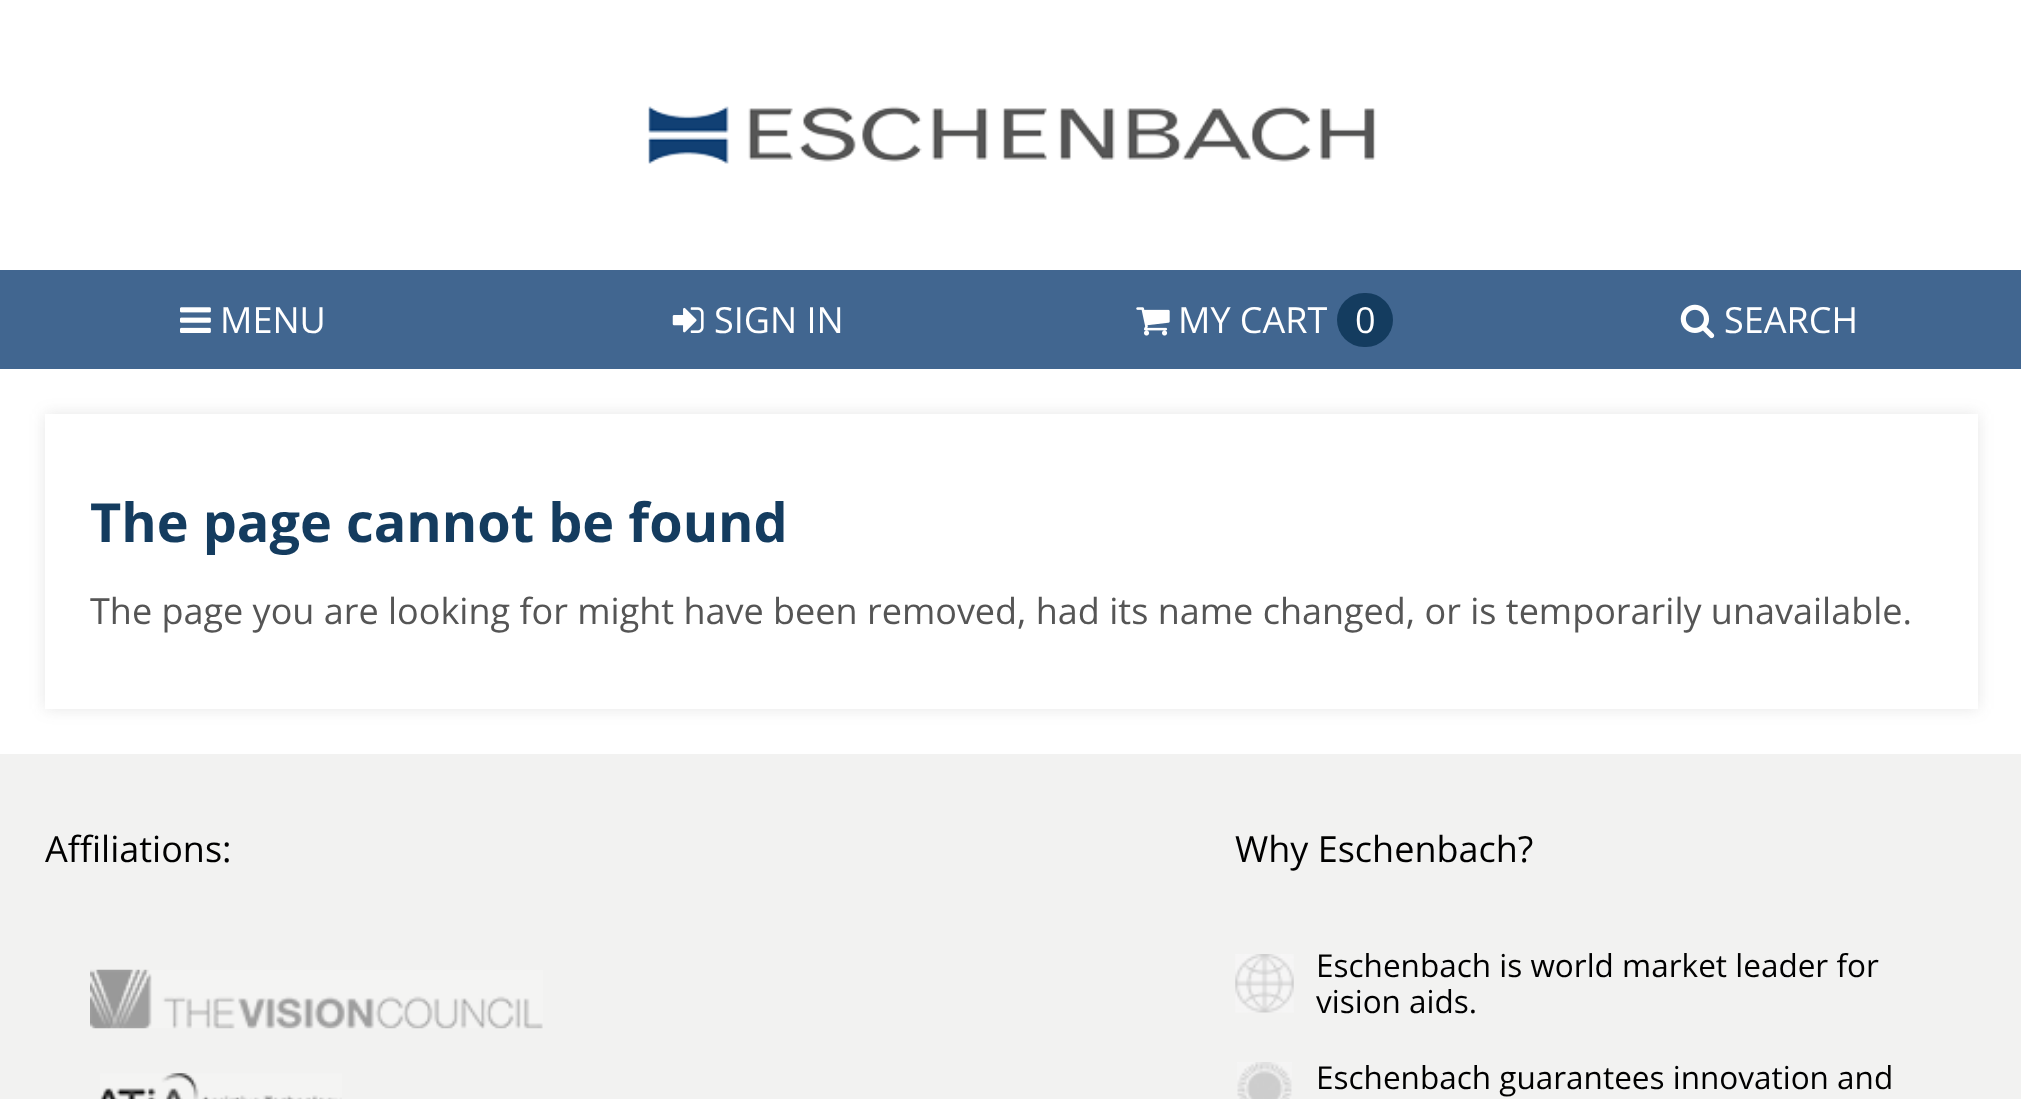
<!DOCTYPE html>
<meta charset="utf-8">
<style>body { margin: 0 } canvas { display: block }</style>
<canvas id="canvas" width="2021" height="1099"></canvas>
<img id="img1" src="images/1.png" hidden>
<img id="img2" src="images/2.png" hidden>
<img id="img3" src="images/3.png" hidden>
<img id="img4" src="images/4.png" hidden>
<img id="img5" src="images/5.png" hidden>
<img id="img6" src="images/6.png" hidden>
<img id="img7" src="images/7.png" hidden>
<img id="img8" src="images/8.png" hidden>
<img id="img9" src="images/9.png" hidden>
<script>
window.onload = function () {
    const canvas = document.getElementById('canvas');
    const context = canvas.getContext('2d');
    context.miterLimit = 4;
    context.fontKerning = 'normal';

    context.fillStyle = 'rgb(255, 255, 255)';
    context.fillRect(0, 0, 2021, 1099);
    context.drawImage(document.getElementById('img1'), 648, 106, 728, 58);
    context.fillStyle = 'rgb(65, 102, 144)';
    context.fillRect(0, 270, 2021, 99);
    context.drawImage(document.getElementById('img2'), 180, 307, 31, 26);
    context.drawImage(document.getElementById('img3'), 672, 307, 32, 26);
    context.drawImage(document.getElementById('img4'), 1136, 307, 34, 29);
    context.fillStyle = 'rgb(20, 60, 95)';
    context.beginPath();
    context.roundRect(1337, 293, 56, 54, 27);
    context.fill();
    context.drawImage(document.getElementById('img5'), 1680, 304, 35, 35);
    context.fillStyle = 'rgba(79, 82, 83, 0.15)';
    context.filter = 'blur(8px)';
    context.beginPath();
    context.rect(45, 414, 1933, 295);
    context.fill();
    context.filter = 'none';
    context.fillStyle = 'rgb(255, 255, 255)';
    context.fillRect(45, 414, 1933, 295);
    context.fillStyle = 'rgb(242, 242, 241)';
    context.fillRect(0, 754, 2021, 345);
    context.drawImage(document.getElementById('img6'), 90, 969, 453, 60);
    context.drawImage(document.getElementById('img7'), 100, 1073, 242, 26);
    context.drawImage(document.getElementById('img8'), 1235, 954, 59, 59);
    context.drawImage(document.getElementById('img9'), 1237, 1062, 55, 37);
    context.font = '36px Open Sans';
    context.fillStyle = 'rgb(255, 255, 255)';
    context.fillText('MENU', 220, 333);
    context.fillText('SIGN IN', 714, 333);
    context.fillText('MY CART', 1178, 333);
    context.fillText('0', 1355, 333);
    context.fillText('SEARCH', 1724, 333);
    context.font = 'bold 54px Open Sans';
    context.fillStyle = 'rgb(20, 60, 95)';
    context.fillText('The page cannot be found', 90, 542);
    context.font = '36px Open Sans';
    context.fillStyle = 'rgb(85, 85, 85)';
    context.fillText('The page you are looking for might have been removed, had its name changed, or is temporarily unavailable.', 90, 624);
    context.fillStyle = 'rgb(0, 0, 0)';
    context.fillText('Affiliations:', 45, 862);
    context.fillText('Why Eschenbach?', 1235, 862);
    context.font = '31.5px Open Sans';
    context.fillText('Eschenbach is world market leader for', 1316, 977);
    context.fillText('vision aids.', 1316, 1013);
    context.fillText('Eschenbach guarantees innovation and', 1316, 1089);
};
</script>
